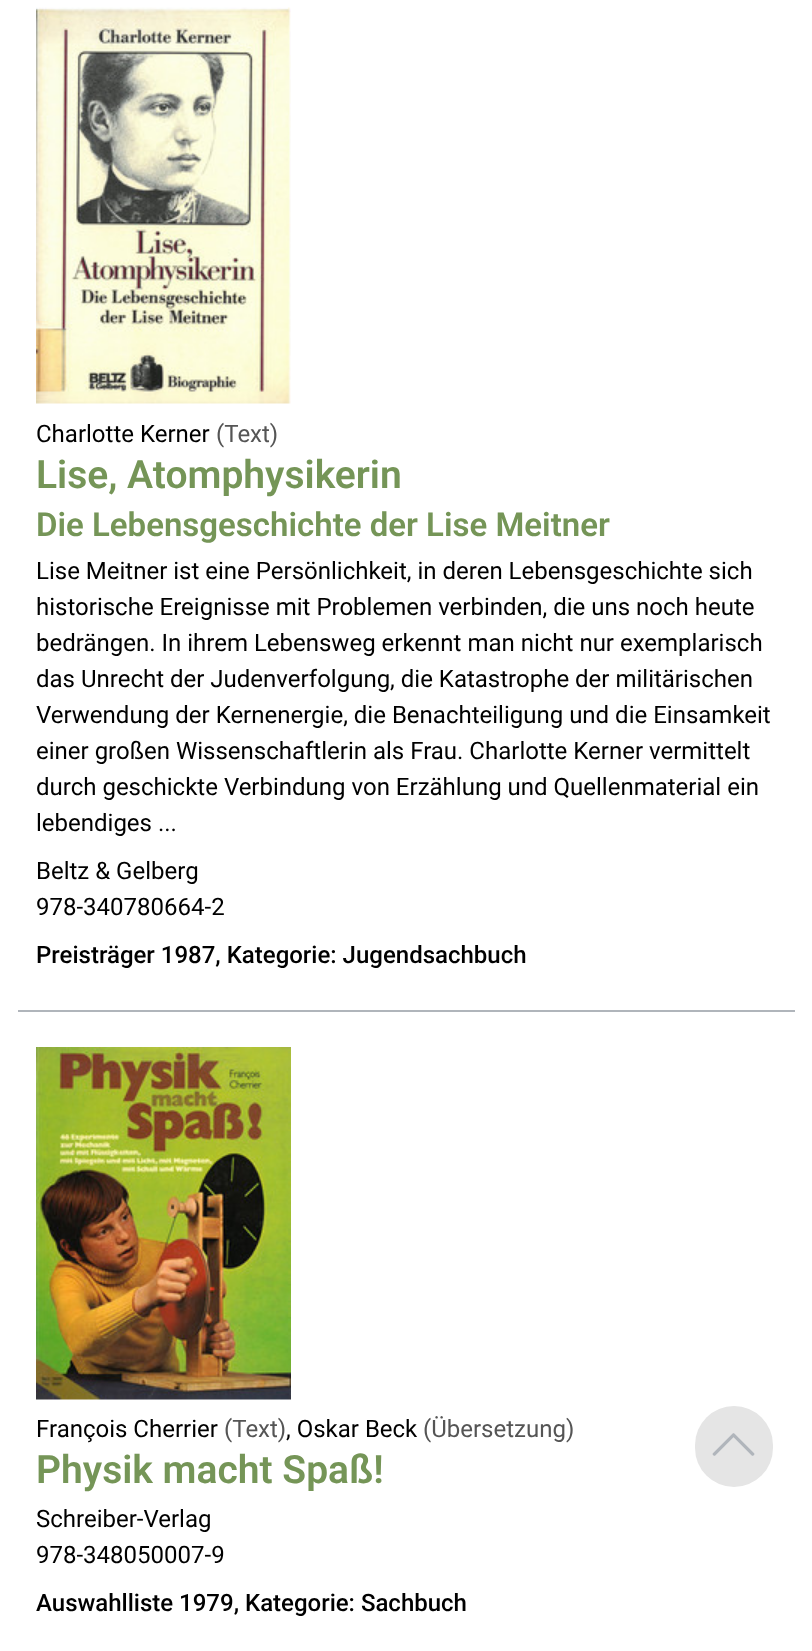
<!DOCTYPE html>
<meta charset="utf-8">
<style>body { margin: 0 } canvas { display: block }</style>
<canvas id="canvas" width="812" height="1651"></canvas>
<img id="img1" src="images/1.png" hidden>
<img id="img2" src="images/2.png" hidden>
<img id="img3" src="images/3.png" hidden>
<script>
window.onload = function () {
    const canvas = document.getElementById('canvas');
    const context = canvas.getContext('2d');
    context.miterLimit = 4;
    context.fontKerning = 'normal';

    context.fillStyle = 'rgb(255, 255, 255)';
    context.fillRect(0, 0, 812, 1651);
    context.fillStyle = 'rgb(176, 181, 187)';
    context.fillRect(18, 1010, 777, 2);
    context.drawImage(document.getElementById('img1'), 36, 7, 255, 397);
    context.drawImage(document.getElementById('img2'), 36, 1047, 255, 353);
    context.fillStyle = 'rgb(229, 229, 229)';
    context.beginPath();
    context.roundRect(695, 1406, 78, 81, 39);
    context.fill();
    context.drawImage(document.getElementById('img3'), 712, 1433, 43, 23);
    context.font = '24px Roboto';
    context.fillStyle = 'rgb(0, 0, 0)';
    context.fillText('Charlotte Kerner', 36, 442);
    context.fillStyle = 'rgb(85, 85, 85)';
    context.fillText('(Text)', 216, 442);
    context.font = '600 39px Roboto';
    context.fillStyle = 'rgb(117, 149, 87)';
    context.fillText('Lise, Atomphysikerin', 36, 488);
    context.font = '600 33px Roboto';
    context.fillText('Die Lebensgeschichte der Lise Meitner', 36, 536);
    context.font = '24px Roboto';
    context.fillStyle = 'rgb(0, 0, 0)';
    context.fillText('Lise Meitner ist eine Persönlichkeit, in deren Lebensgeschichte sich', 36, 579);
    context.fillText('historische Ereignisse mit Problemen verbinden, die uns noch heute', 36, 615);
    context.fillText('bedrängen. In ihrem Lebensweg erkennt man nicht nur exemplarisch', 36, 651);
    context.fillText('das Unrecht der Judenverfolgung, die Katastrophe der militärischen', 36, 687);
    context.fillText('Verwendung der Kernenergie, die Benachteiligung und die Einsamkeit', 36, 723);
    context.fillText('einer großen Wissenschaftlerin als Frau. Charlotte Kerner vermittelt', 36, 759);
    context.fillText('durch geschickte Verbindung von Erzählung und Quellenmaterial ein', 36, 795);
    context.fillText('lebendiges ...', 36, 831);
    context.fillText('Beltz & Gelberg', 36, 879);
    context.fillText('978-340780664-2', 36, 915);
    context.font = '500 24px Roboto';
    context.fillText('Preisträger 1987, Kategorie: Jugendsachbuch', 36, 963);
    context.font = '24px Roboto';
    context.fillText('François Cherrier', 36, 1437);
    context.fillStyle = 'rgb(85, 85, 85)';
    context.fillText('(Text)', 224, 1437);
    context.fillStyle = 'rgb(0, 0, 0)';
    context.fillText(', Oskar Beck', 286, 1437);
    context.fillStyle = 'rgb(85, 85, 85)';
    context.fillText('(Übersetzung)', 423, 1437);
    context.font = '600 39px Roboto';
    context.fillStyle = 'rgb(117, 149, 87)';
    context.fillText('Physik macht Spaß!', 36, 1483);
    context.font = '24px Roboto';
    context.fillStyle = 'rgb(0, 0, 0)';
    context.fillText('Schreiber-Verlag', 36, 1527);
    context.fillText('978-348050007-9', 36, 1563);
    context.font = '500 24px Roboto';
    context.fillText('Auswahlliste 1979, Kategorie: Sachbuch', 36, 1611);
};
</script>
